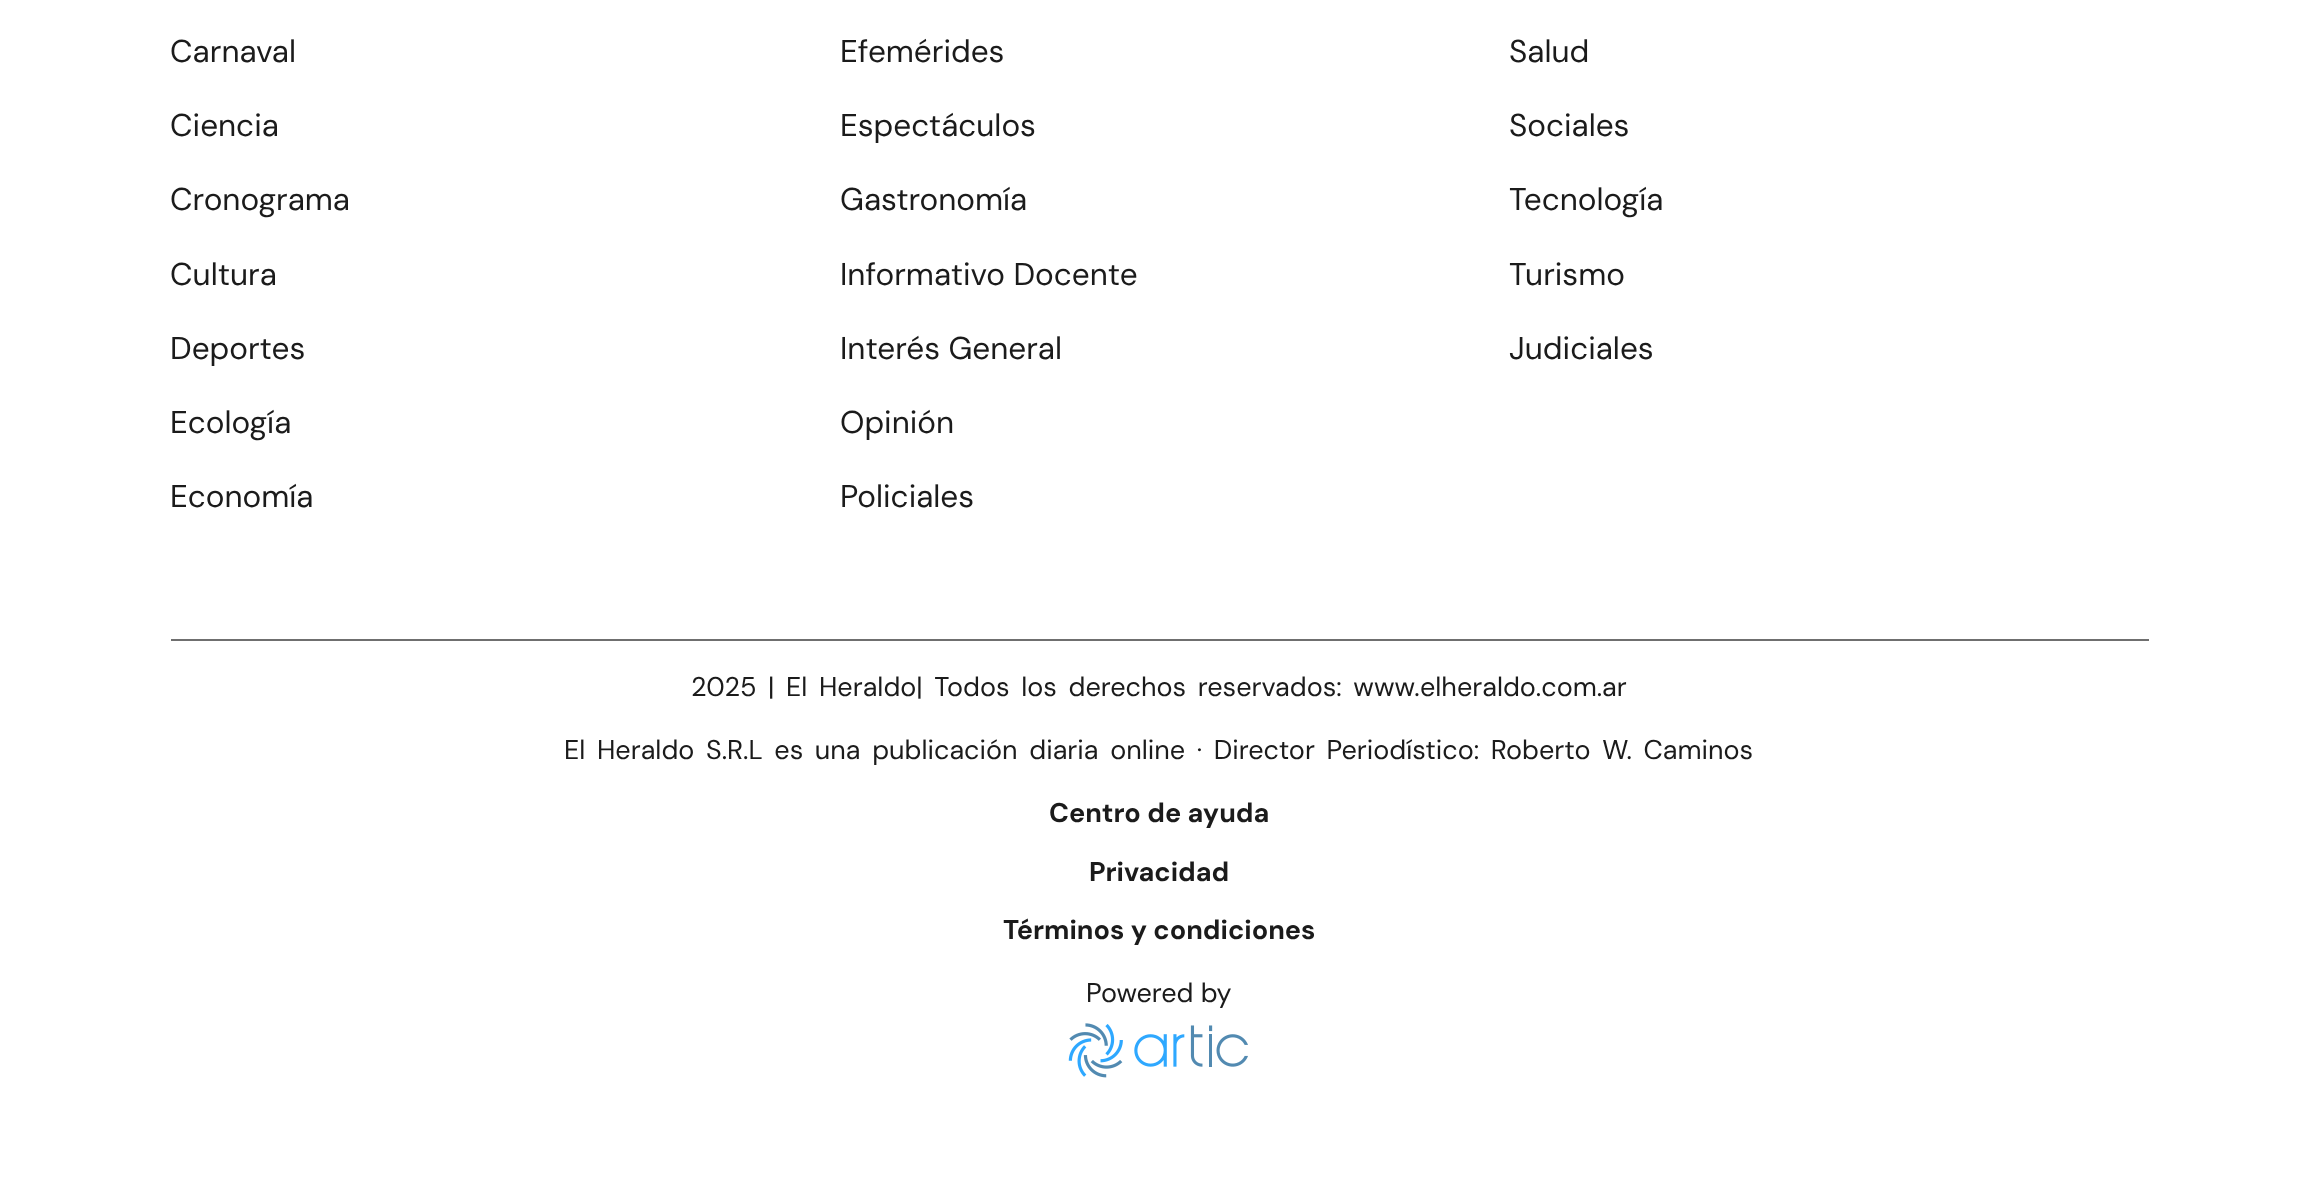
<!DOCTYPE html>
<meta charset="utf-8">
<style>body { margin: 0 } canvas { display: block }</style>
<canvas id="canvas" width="2316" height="1195"></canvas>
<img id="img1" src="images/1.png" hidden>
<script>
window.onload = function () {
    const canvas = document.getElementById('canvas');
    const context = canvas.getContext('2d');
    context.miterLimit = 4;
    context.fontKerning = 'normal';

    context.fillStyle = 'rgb(255, 255, 255)';
    context.fillRect(0, 0, 2316, 1195);
    context.fillStyle = 'rgb(111, 111, 111)';
    context.fillRect(171, 639, 1978, 2);
    context.drawImage(document.getElementById('img1'), 1068, 1023, 180, 55);
    context.font = '31.5px DM Sans';
    context.fillStyle = 'rgb(27, 27, 27)';
    context.fillText('Carnaval', 170, 62);
    context.fillText('Efemérides', 840, 62);
    context.fillText('Salud', 1509, 62);
    context.fillText('Ciencia', 170, 136);
    context.fillText('Espectáculos', 840, 136);
    context.fillText('Sociales', 1509, 136);
    context.fillText('Cronograma', 170, 210);
    context.fillText('Gastronomía', 840, 210);
    context.fillText('Tecnología', 1509, 210);
    context.fillText('Cultura', 170, 285);
    context.fillText('Informativo Docente', 840, 285);
    context.fillText('Turismo', 1509, 285);
    context.fillText('Deportes', 170, 359);
    context.fillText('Interés General', 840, 359);
    context.fillText('Judiciales', 1509, 359);
    context.fillText('Ecología', 170, 433);
    context.fillText('Opinión', 840, 433);
    context.fillText('Economía', 170, 507);
    context.fillText('Policiales', 840, 507);
    context.font = '27px DM Sans';
    context.fillText('2025', 691, 696);
    context.fillText('|', 768, 696);
    context.wordSpacing = '4.5px';
    context.fillText('El Heraldo| Todos los derechos reservados: www.', 786, 696);
    context.wordSpacing = '0px';
    context.fillText('elheraldo.com.ar', 1420, 696);
    context.wordSpacing = '4.5px';
    context.fillText('El Heraldo S.R.L es una publicación diaria online · Director Periodístico: Roberto W. Caminos', 564, 759);
    context.wordSpacing = '0px';
    context.font = 'bold 27px DM Sans';
    context.fillText('Centro de ayuda', 1049, 822);
    context.fillText('Privacidad', 1089, 881);
    context.fillText('Términos y condiciones', 1003, 939);
    context.font = '27px DM Sans';
    context.fillText('Powered by', 1086, 1002);
};
</script>
